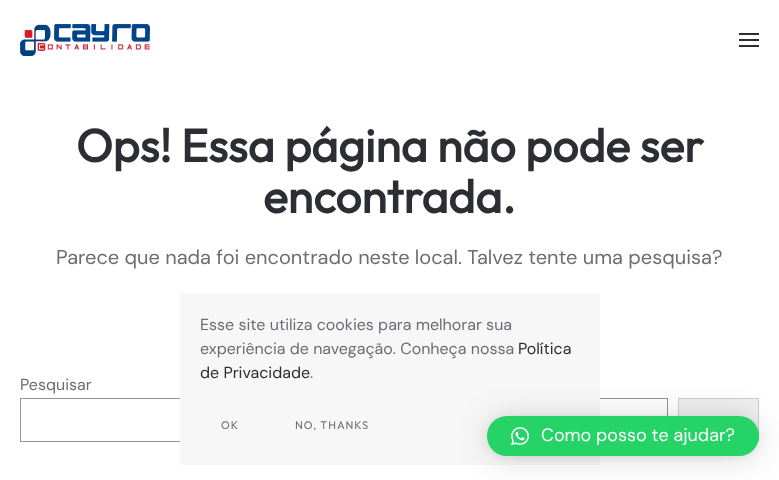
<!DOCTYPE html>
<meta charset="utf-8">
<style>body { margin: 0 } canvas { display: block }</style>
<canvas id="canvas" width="779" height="480"></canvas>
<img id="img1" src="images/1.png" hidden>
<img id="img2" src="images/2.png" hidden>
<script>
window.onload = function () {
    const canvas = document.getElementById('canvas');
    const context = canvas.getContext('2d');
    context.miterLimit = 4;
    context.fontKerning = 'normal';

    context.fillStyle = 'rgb(255, 255, 255)';
    context.fillRect(0, 0, 779, 480);
    context.drawImage(document.getElementById('img1'), 20, 24, 130, 32);
    context.fillStyle = 'rgb(45, 46, 51)';
    context.fillRect(739, 33, 20, 2);
    context.fillRect(739, 39, 20, 2);
    context.fillRect(739, 45, 20, 2);
    context.strokeStyle = 'rgb(148, 148, 148)';
    context.strokeRect(20.5, 398.5, 647, 43);
    context.fillStyle = 'rgb(239, 239, 239)';
    context.fillRect(679, 399, 79, 31);
    context.strokeStyle = 'rgb(204, 204, 204)';
    context.strokeRect(678.5, 398.5, 80, 43);
    context.fillStyle = 'rgb(247, 247, 247)';
    context.fillRect(180, 293, 420, 172);
    context.fillStyle = 'rgba(0, 0, 0, 0.16)';
    context.filter = 'blur(16px)';
    context.beginPath();
    context.roundRect(487, 418, 272, 40, 20);
    context.fill();
    context.filter = 'none';
    context.fillStyle = 'rgba(0, 0, 0, 0.06)';
    context.filter = 'blur(3px)';
    context.beginPath();
    context.roundRect(487, 417, 272, 40, 20);
    context.fill();
    context.filter = 'none';
    context.fillStyle = 'rgb(37, 211, 102)';
    context.beginPath();
    context.roundRect(487, 416, 272, 40, 20);
    context.fill();
    context.drawImage(document.getElementById('img2'), 511, 427, 18, 19);
    context.font = 'bold 46.25px Outfit';
    context.fillStyle = 'rgb(45, 46, 51)';
    context.fillText('Ops! Essa página não pode ser', 76, 162);
    context.fillText('encontrada.', 263, 213);
    context.font = '20px DM Sans';
    context.fillStyle = 'rgb(108, 109, 116)';
    context.fillText('Parece que nada foi encontrado neste local. Talvez tente uma pesquisa?', 56, 264);
    context.font = '16px DM Sans';
    context.fillText('Pesquisar', 20, 390);
    context.fillText('Esse site utiliza cookies para melhorar sua', 200, 330);
    context.fillText('experiência de navegação. Conheça nossa', 200, 354);
    context.fillStyle = 'rgb(45, 46, 51)';
    context.fillText('Política', 518, 354);
    context.fillText('de Privacidade', 200, 378);
    context.fillStyle = 'rgb(108, 109, 116)';
    context.fillText('.', 310, 378);
    context.letterSpacing = '1px';
    context.font = '100 11px Outfit';
    context.fillText('OK', 221, 429);
    context.fillText('NO, THANKS', 295, 429);
    context.letterSpacing = '0px';
    context.font = '18px DM Sans';
    context.fillStyle = 'rgb(255, 255, 255)';
    context.fillText('Como posso te ajudar?', 541, 441);
};
</script>
